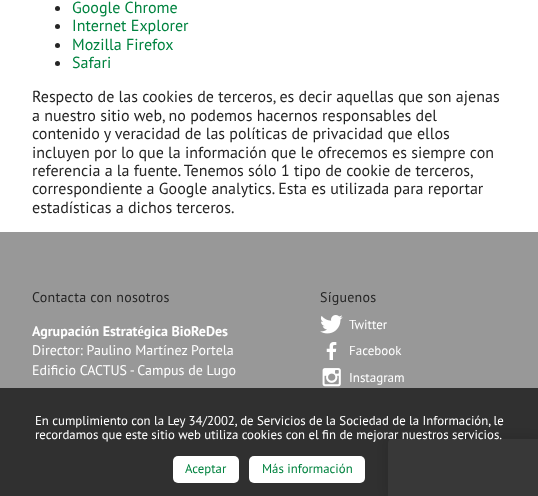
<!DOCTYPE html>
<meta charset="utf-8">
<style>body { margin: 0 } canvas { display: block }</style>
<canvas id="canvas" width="538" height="496"></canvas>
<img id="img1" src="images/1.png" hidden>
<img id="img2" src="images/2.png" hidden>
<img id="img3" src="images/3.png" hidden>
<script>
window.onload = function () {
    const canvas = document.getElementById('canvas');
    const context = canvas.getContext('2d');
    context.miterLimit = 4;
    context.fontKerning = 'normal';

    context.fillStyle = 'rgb(255, 255, 255)';
    context.fillRect(0, 0, 538, 496);
    context.fillStyle = 'rgb(37, 37, 37)';
    context.beginPath();
    context.arc(57.5, 8.5, 2.5, 0, 2 * Math.PI);
    context.fill();
    context.beginPath();
    context.arc(57.5, 26.5, 2.5, 0, 2 * Math.PI);
    context.fill();
    context.beginPath();
    context.arc(57.5, 45.5, 2.5, 0, 2 * Math.PI);
    context.fill();
    context.beginPath();
    context.arc(57.5, 63.5, 2.5, 0, 2 * Math.PI);
    context.fill();
    context.fillStyle = 'rgb(152, 152, 152)';
    context.fillRect(0, 232, 538, 264);
    context.drawImage(document.getElementById('img1'), 320, 315, 23, 19);
    context.drawImage(document.getElementById('img2'), 326, 342, 11, 18);
    context.drawImage(document.getElementById('img3'), 322, 368, 19, 19);
    context.fillStyle = 'rgba(37, 37, 37, 0.3)';
    context.filter = 'blur(5px)';
    context.beginPath();
    context.roundRect(383, 434, 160, 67, 9);
    context.fill();
    context.filter = 'none';
    context.fillStyle = 'rgb(228, 228, 228)';
    context.beginPath();
    context.roundRect(388, 439, 150, 57, [4, 0, 0, 0]);
    context.fill();
    context.fillStyle = 'rgba(37, 37, 37, 0.9)';
    context.fillRect(0, 388, 538, 108);
    context.fillStyle = 'rgb(255, 255, 255)';
    context.beginPath();
    context.roundRect(173, 456, 66, 27, 5);
    context.fill();
    context.beginPath();
    context.roundRect(249, 456, 116, 27, 5);
    context.fill();
    context.font = '16px PT Sans';
    context.fillStyle = 'rgb(0, 131, 63)';
    context.fillText('Google Chrome', 72, 13);
    context.fillText('Internet Explorer', 72, 31);
    context.fillText('Mozilla Firefox', 72, 50);
    context.fillText('Safari', 72, 68);
    context.fillStyle = 'rgb(37, 37, 37)';
    context.fillText('Respecto de las cookies de terceros, es decir aquellas que son ajenas', 32, 102);
    context.fillText('a nuestro sitio web, no podemos hacernos responsables del', 32, 121);
    context.fillText('contenido y veracidad de las políticas de privacidad que ellos', 32, 139);
    context.fillText('incluyen por lo que la información que le ofrecemos es siempre con', 32, 158);
    context.fillText('referencia a la fuente. Tenemos sólo 1 tipo de cookie de terceros,', 32, 176);
    context.fillText('correspondiente a Google analytics. Esta es utilizada para reportar', 32, 194);
    context.fillText('estadísticas a dichos terceros.', 32, 213);
    context.letterSpacing = '0.25px';
    context.font = '14px PT Sans';
    context.fillText('Contacta con nosotros', 32, 302);
    context.letterSpacing = '0px';
    context.font = 'bold 14px PT Sans';
    context.fillStyle = 'rgb(255, 255, 255)';
    context.fillText('Agrupación Estratégica BioReDes', 32, 336);
    context.font = '14px PT Sans';
    context.fillText('Director: Paulino Martínez Portela', 32, 355);
    context.fillText('Edificio CACTUS - Campus de Lugo', 32, 375);
    context.letterSpacing = '0.25px';
    context.fillStyle = 'rgb(37, 37, 37)';
    context.fillText('Síguenos', 320, 302);
    context.letterSpacing = '0px';
    context.font = '13px PT Sans';
    context.fillStyle = 'rgb(255, 255, 255)';
    context.fillText('Twitter', 349, 329);
    context.fillText('Facebook', 349, 355);
    context.fillText('Instagram', 349, 382);
    context.font = '12.8px PT Sans';
    context.fillText('En cumplimiento con la Ley 34/2002, de Servicios de la Sociedad de la Información, le', 35, 425);
    context.fillText('recordamos que este sitio web utiliza cookies con el fin de mejorar nuestros servicios.', 35, 439);
    context.fillStyle = 'rgb(0, 131, 63)';
    context.fillText('Aceptar', 185, 473);
    context.fillText('Más información', 262, 473);
};
</script>
